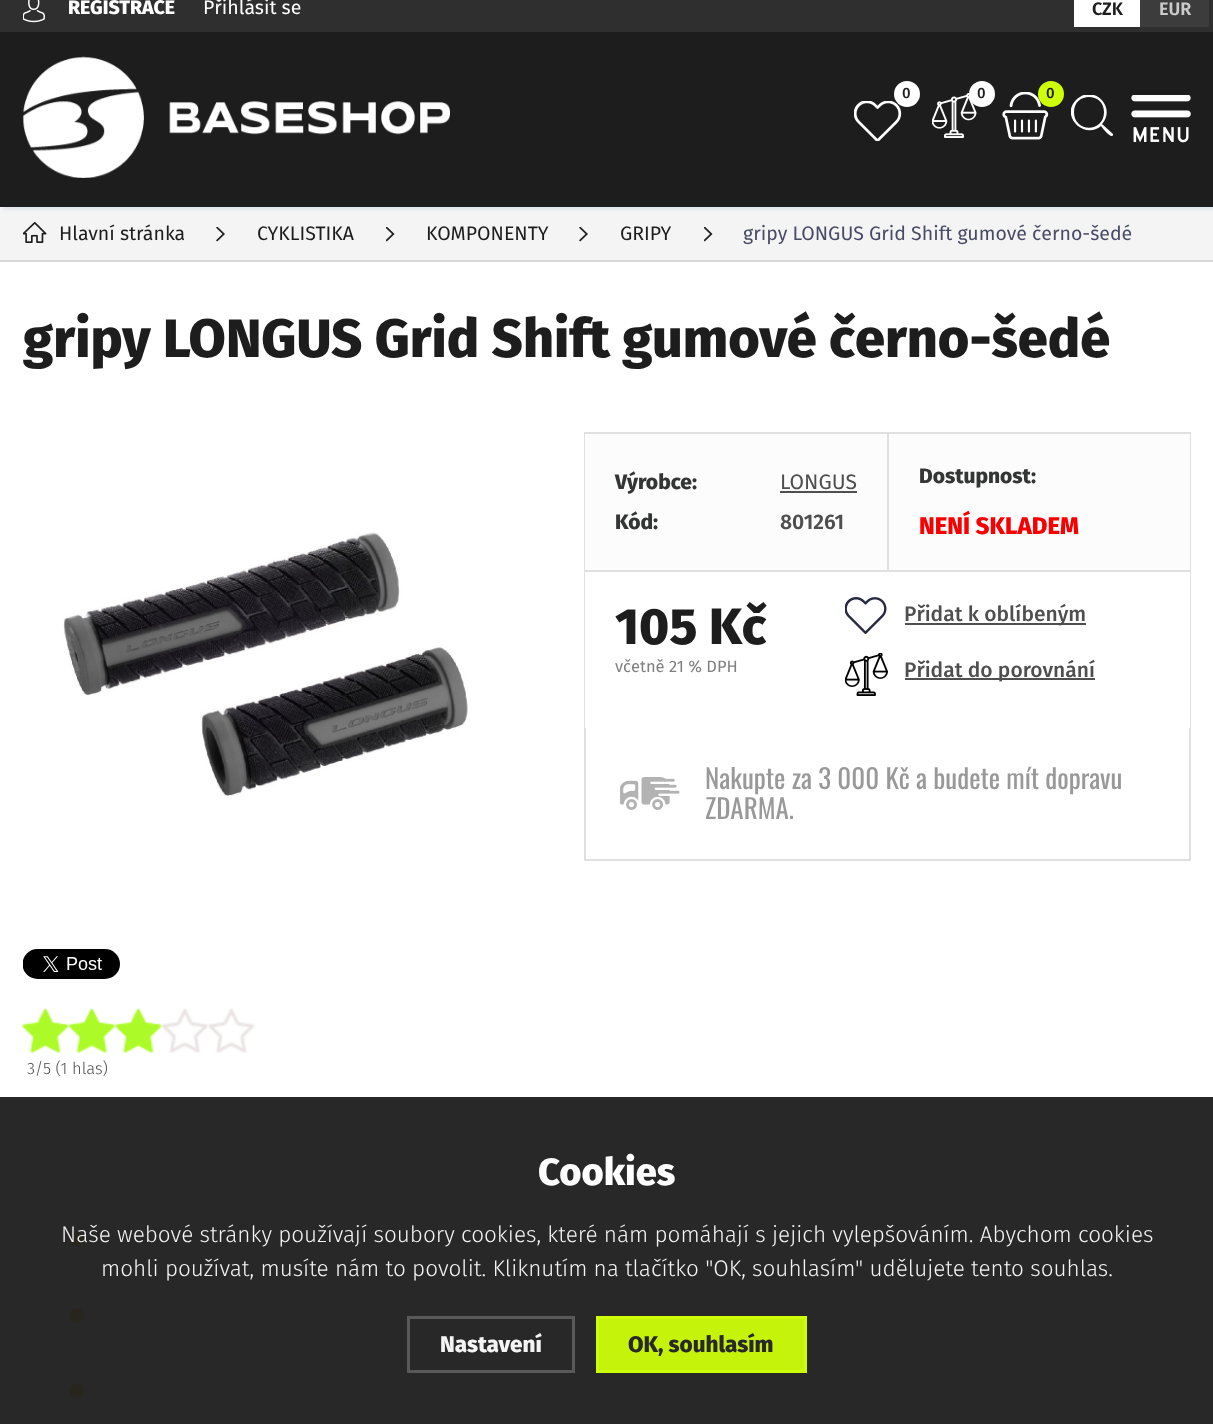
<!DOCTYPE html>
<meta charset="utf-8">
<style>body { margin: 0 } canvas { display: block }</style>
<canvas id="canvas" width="1213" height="1424"></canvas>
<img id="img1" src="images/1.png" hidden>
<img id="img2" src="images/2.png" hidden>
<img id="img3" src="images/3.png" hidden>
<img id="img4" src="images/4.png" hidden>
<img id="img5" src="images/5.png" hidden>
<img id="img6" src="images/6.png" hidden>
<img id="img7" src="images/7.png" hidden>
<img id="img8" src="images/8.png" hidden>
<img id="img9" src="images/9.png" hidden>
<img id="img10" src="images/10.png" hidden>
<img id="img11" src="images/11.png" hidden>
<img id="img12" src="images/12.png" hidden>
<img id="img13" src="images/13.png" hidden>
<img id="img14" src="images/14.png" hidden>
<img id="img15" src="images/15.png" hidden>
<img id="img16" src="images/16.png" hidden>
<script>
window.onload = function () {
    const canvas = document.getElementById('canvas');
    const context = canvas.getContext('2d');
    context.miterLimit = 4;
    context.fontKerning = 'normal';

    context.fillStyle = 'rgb(255, 255, 255)';
    context.fillRect(0, 0, 1213, 1424);
    context.fillStyle = 'rgb(40, 40, 40)';
    context.fillRect(0, 1097, 1213, 327);
    context.fillStyle = 'rgb(244, 244, 244)';
    context.fillRect(0, 207, 1213, 53);
    context.fillStyle = 'rgba(0, 74, 129, 0.08)';
    context.filter = 'blur(1.5px)';
    context.beginPath();
    context.rect(3, -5, 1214, 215);
    context.fill();
    context.filter = 'none';
    context.fillStyle = 'rgb(29, 29, 29)';
    context.fillRect(0, 32, 1213, 175);
    context.fillStyle = 'rgb(47, 47, 47)';
    context.fillRect(0, 0, 1213, 32);
    context.drawImage(document.getElementById('img1'), 23, 0, 22, 23);
    context.drawImage(document.getElementById('img2'), 22, 56, 428, 122);
    context.drawImage(document.getElementById('img3'), 854, 101, 48, 40);
    context.fillStyle = 'rgb(255, 255, 255)';
    context.beginPath();
    context.arc(907, 94, 13, 0, 2 * Math.PI);
    context.fill();
    context.drawImage(document.getElementById('img4'), 932, 93, 45, 45);
    context.beginPath();
    context.arc(982, 94, 13, 0, 2 * Math.PI);
    context.fill();
    context.drawImage(document.getElementById('img5'), 1002, 92, 47, 48);
    context.fillStyle = 'rgb(206, 254, 8)';
    context.beginPath();
    context.arc(1051, 94, 13, 0, 2 * Math.PI);
    context.fill();
    context.save();
    context.beginPath();
    context.rect(1071, 95, 42, 42);
    context.clip();
    context.fillStyle = 'rgb(255, 255, 255)';
    context.beginPath();
    context.moveTo(1113, 134);
    context.lineTo(1102, 124);
    context.bezierCurveTo(1117, 107, 1093, 83, 1076, 100);
    context.bezierCurveTo(1060, 116, 1084, 140, 1101, 126);
    context.bezierCurveTo(1102, 128, 1110, 137, 1112, 136);
    context.bezierCurveTo(1113, 136, 1113, 135, 1113, 134);
    context.closePath();
    context.moveTo(1074, 112);
    context.bezierCurveTo(1074, 92, 1104, 92, 1104, 112);
    context.bezierCurveTo(1104, 133, 1074, 133, 1074, 112);
    context.closePath();
    context.fill('evenodd');
    context.restore();
    context.drawImage(document.getElementById('img6'), 1131, 95, 60, 48);
    context.fillStyle = 'rgb(255, 255, 255)';
    context.fillRect(1074, 0, 66, 27);
    context.fillStyle = 'rgb(60, 60, 60)';
    context.fillRect(1140, 0, 69, 27);
    context.fillStyle = 'rgb(216, 216, 216)';
    context.fillRect(0, 260, 1213, 2);
    context.drawImage(document.getElementById('img7'), 23, 222, 24, 21);
    context.drawImage(document.getElementById('img8'), 216, 227, 9, 15);
    context.drawImage(document.getElementById('img9'), 386, 227, 9, 15);
    context.drawImage(document.getElementById('img8'), 579, 227, 9, 15);
    context.drawImage(document.getElementById('img9'), 704, 227, 9, 15);
    context.strokeStyle = 'rgb(224, 224, 224)';
    context.lineWidth = 2;
    context.strokeRect(585, 433, 605, 427);
    context.fillStyle = 'rgb(252, 252, 252)';
    context.fillRect(585, 434, 605, 136);
    context.fillStyle = 'rgb(79, 79, 79)';
    context.fillRect(780, 491, 77, 2);
    context.fillStyle = 'rgb(224, 224, 224)';
    context.fillRect(887, 434, 2, 136);
    context.fillStyle = 'rgb(255, 255, 255)';
    context.fillRect(585, 572, 605, 156);
    context.fillStyle = 'rgb(224, 224, 224)';
    context.fillRect(585, 570, 605, 2);
    context.drawImage(document.getElementById('img10'), 845, 597, 42, 37);
    context.fillStyle = 'rgb(79, 79, 79)';
    context.fillRect(905, 623, 181, 2);
    context.drawImage(document.getElementById('img11'), 845, 653, 43, 43);
    context.fillRect(905, 678, 190, 2);
    context.drawImage(document.getElementById('img12'), 620, 777, 60, 33);
    context.drawImage(document.getElementById('img13'), 63, 532, 405, 264);
    context.drawImage(document.getElementById('img14'), 23, 949, 97, 30);
    context.drawImage(document.getElementById('img15'), 22, 1008, 234, 45);
    context.drawImage(document.getElementById('img16'), 22, 1008, 140, 45);
    context.fillStyle = 'rgb(40, 37, 28)';
    context.beginPath();
    context.arc(76.5, 1239, 7, 0, 2 * Math.PI);
    context.fill();
    context.beginPath();
    context.arc(76.5, 1315.5, 7, 0, 2 * Math.PI);
    context.fill();
    context.beginPath();
    context.arc(76.5, 1390.5, 7, 0, 2 * Math.PI);
    context.fill();
    context.strokeStyle = 'rgba(92, 92, 93, 0.95)';
    context.lineWidth = 3;
    context.strokeRect(408.5, 1317.5, 165, 54);
    context.fillStyle = 'rgba(206, 254, 8, 0.95)';
    context.beginPath();
    context.rect(597.5, 1317.5, 208, 54);
    context.fill();
    context.strokeStyle = 'rgb(206, 253, 8)';
    context.stroke();
    context.font = '800 19.5px Fira Sans';
    context.fillStyle = 'rgb(255, 255, 255)';
    context.fillText('REGISTRACE', 68, 14);
    context.font = '19.5px Fira Sans';
    context.fillText('Přihlásit se', 203, 14);
    context.font = '500 15px Fira Sans';
    context.fillStyle = 'rgb(29, 29, 29)';
    context.fillText('0', 902, 98);
    context.fillText('0', 977, 98);
    context.fillText('0', 1046, 98);
    context.font = '600 18px Fira Sans';
    context.fillText('CZK', 1092, 15);
    context.fillStyle = 'rgb(202, 202, 203)';
    context.fillText('EUR', 1159, 15);
    context.font = '19.5px Fira Sans';
    context.fillStyle = 'rgb(29, 29, 29)';
    context.fillText('Hlavní stránka', 59, 240);
    context.fillText('CYKLISTIKA', 257, 240);
    context.fillText('KOMPONENTY', 426, 240);
    context.fillText('GRIPY', 620, 240);
    context.fillStyle = 'rgb(72, 75, 101)';
    context.fillText('gripy LONGUS Grid Shift gumové černo-šedé', 743, 240);
    context.font = '800 54px Fira Sans';
    context.fillStyle = 'rgb(29, 29, 29)';
    context.fillText('gripy LONGUS Grid Shift gumové černo-šedé', 23, 357);
    context.font = '800 21px Fira Sans';
    context.fillStyle = 'rgb(52, 53, 53)';
    context.fillText('Výrobce:', 615, 489);
    context.font = '21px Fira Sans';
    context.fillStyle = 'rgb(79, 79, 79)';
    context.fillText('LONGUS', 780, 489);
    context.font = '800 21px Fira Sans';
    context.fillStyle = 'rgb(52, 53, 53)';
    context.fillText('Kód:', 615, 529);
    context.font = '600 21px Fira Sans';
    context.fillStyle = 'rgb(79, 79, 79)';
    context.fillText('801261', 780, 529);
    context.font = '800 21px Fira Sans';
    context.fillStyle = 'rgb(52, 53, 53)';
    context.fillText('Dostupnost:', 919, 483);
    context.font = '800 24px Fira Sans';
    context.fillStyle = 'rgb(248, 0, 0)';
    context.fillText('NENÍ SKLADEM', 919, 534);
    context.font = '800 51px Fira Sans';
    context.fillStyle = 'rgb(29, 29, 29)';
    context.fillText('105 Kč', 615, 644);
    context.font = '16.5px Fira Sans';
    context.fillStyle = 'rgb(128, 128, 128)';
    context.fillText('včetně 21 % DPH', 615, 672);
    context.font = '500 21px Fira Sans';
    context.fillStyle = 'rgb(79, 79, 79)';
    context.fillText('Přidat k oblíbeným', 904, 621);
    context.fillText('Přidat do porovnání', 904, 677);
    context.font = '27px Oswald';
    context.fillStyle = 'rgb(153, 153, 153)';
    context.fillText('Nakupte za 3 000 Kč a budete mít dopravu', 705, 789);
    context.fillText('ZDARMA.', 705, 819);
    context.font = '300 16.5px Fira Sans';
    context.fillStyle = 'rgb(79, 79, 79)';
    context.fillText('3/5 (1 hlas)', 27, 1074);
    context.font = '800 38px Fira Sans';
    context.fillStyle = 'rgb(255, 255, 255)';
    context.fillText('Cookies', 538, 1185);
    context.font = '300 22.5px Fira Sans';
    context.fillStyle = 'rgb(244, 244, 244)';
    context.fillText('Naše webové stránky používají soubory cookies, které nám pomáhají s jejich vylepšováním. Abychom cookies', 61, 1242);
    context.fillText('mohli používat, musíte nám to povolit. Kliknutím na tlačítko "OK, souhlasím" udělujete tento souhlas.', 101, 1276);
    context.font = '800 22.5px Fira Sans';
    context.fillText('Nastavení', 440, 1352);
    context.fillStyle = 'rgb(40, 40, 40)';
    context.fillText('OK, souhlasím', 628, 1352);
};
</script>
